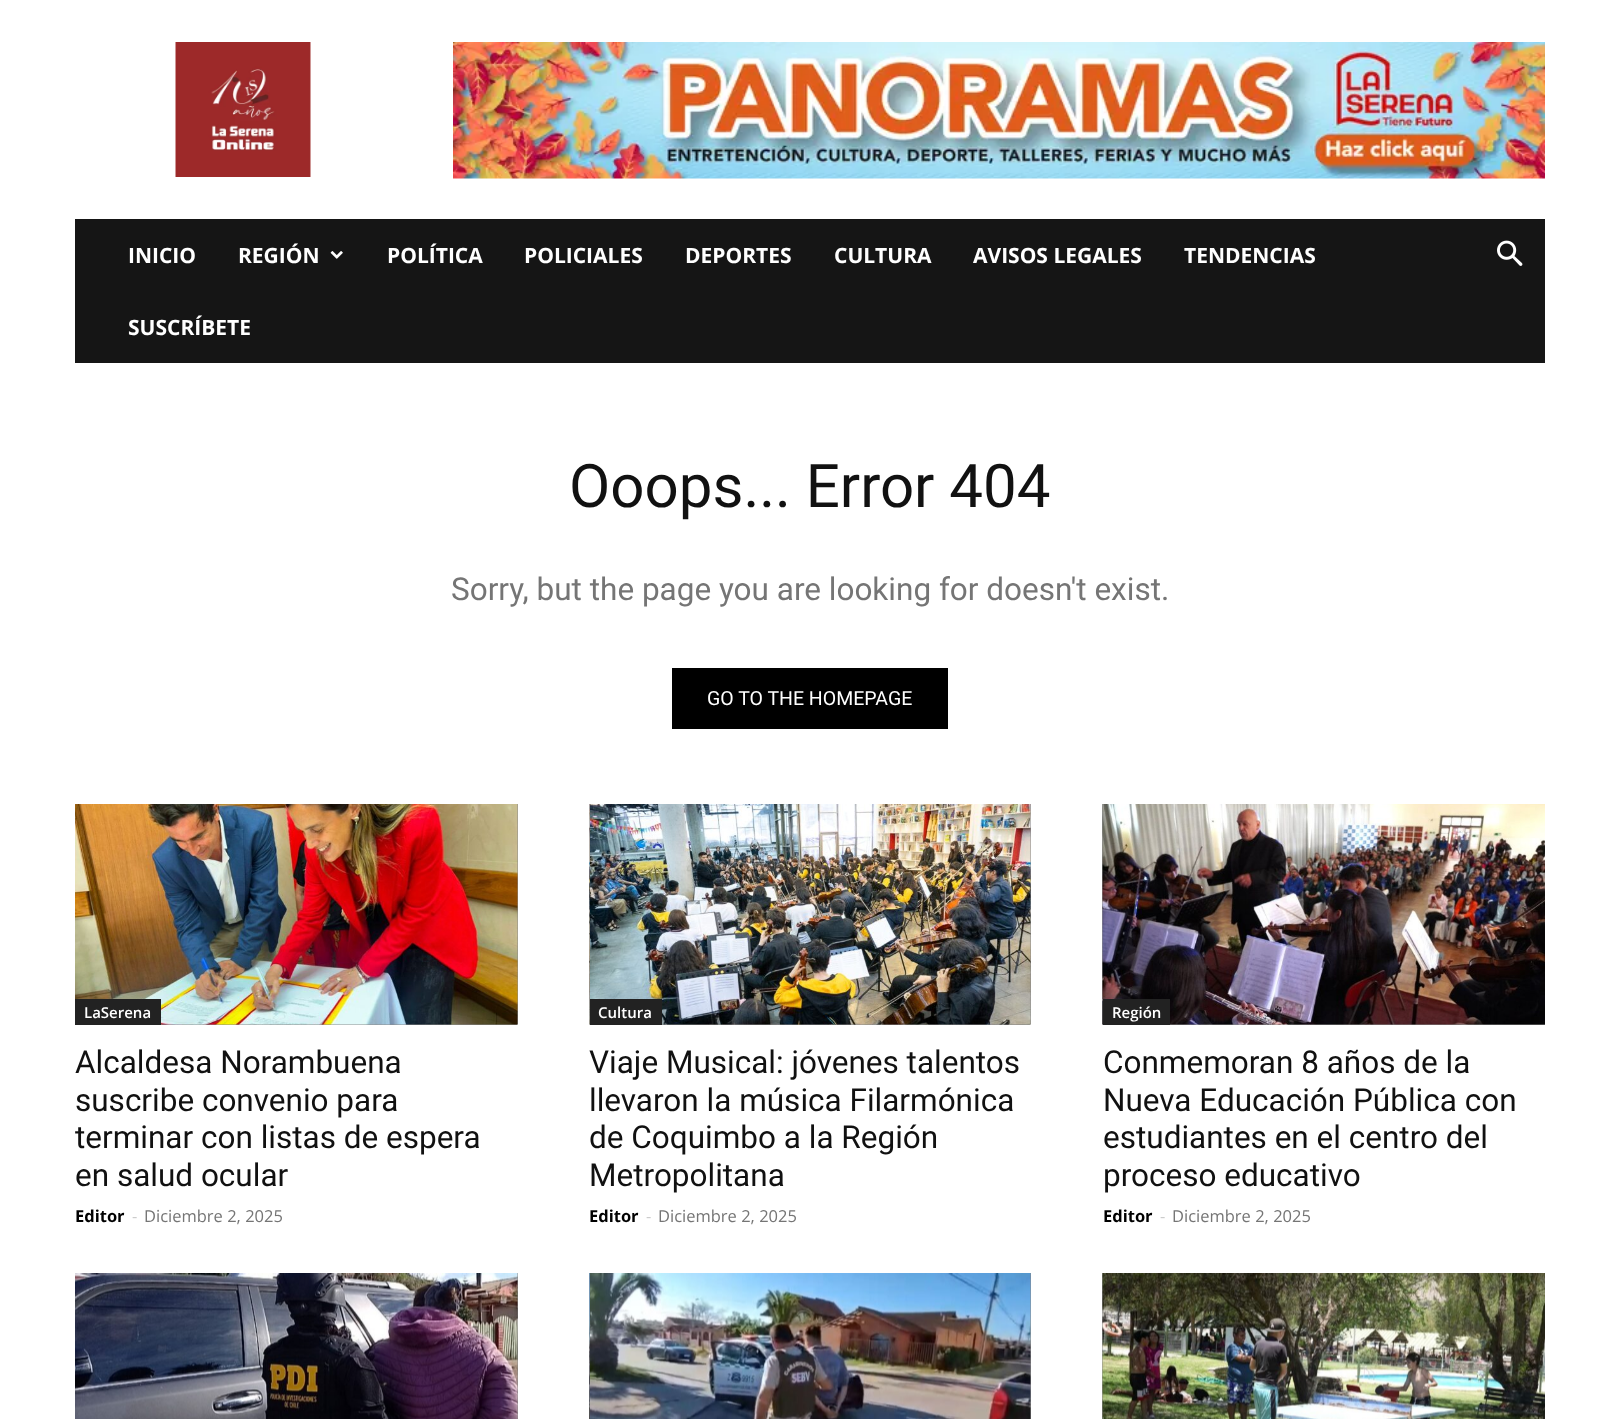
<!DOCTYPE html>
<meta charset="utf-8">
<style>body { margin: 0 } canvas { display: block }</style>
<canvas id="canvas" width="1619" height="1419"></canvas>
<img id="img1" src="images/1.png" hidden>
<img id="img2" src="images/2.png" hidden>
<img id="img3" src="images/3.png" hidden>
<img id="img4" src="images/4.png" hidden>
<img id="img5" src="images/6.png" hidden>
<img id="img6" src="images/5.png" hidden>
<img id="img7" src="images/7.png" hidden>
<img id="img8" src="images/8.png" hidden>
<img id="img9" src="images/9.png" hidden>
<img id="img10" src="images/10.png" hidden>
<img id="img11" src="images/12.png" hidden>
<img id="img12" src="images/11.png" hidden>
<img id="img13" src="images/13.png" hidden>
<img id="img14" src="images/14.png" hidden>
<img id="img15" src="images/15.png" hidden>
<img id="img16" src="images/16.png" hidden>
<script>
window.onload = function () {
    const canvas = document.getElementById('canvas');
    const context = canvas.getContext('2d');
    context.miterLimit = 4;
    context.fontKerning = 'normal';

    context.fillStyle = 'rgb(255, 255, 255)';
    context.fillRect(0, 0, 1619, 1419);
    context.drawImage(document.getElementById('img1'), 175, 42, 136, 135);
    context.drawImage(document.getElementById('img2'), 453, 42, 1092, 137);
    context.fillStyle = 'rgb(21, 21, 21)';
    context.fillRect(75, 219, 1470, 144);
    context.drawImage(document.getElementById('img3'), 330, 251, 13, 8);
    context.drawImage(document.getElementById('img4'), 1497, 240, 26, 26);
    context.fillStyle = 'rgb(0, 0, 0)';
    context.fillRect(672, 668, 276, 61);
    context.drawImage(document.getElementById('img5'), 161, 804, 357, 221);
    context.drawImage(document.getElementById('img6'), 75, 804, 443, 221);
    context.fillStyle = 'rgb(34, 34, 34)';
    context.fillRect(75, 999, 86, 26);
    context.drawImage(document.getElementById('img7'), 589, 804, 442, 221);
    context.drawImage(document.getElementById('img8'), 589, 804, 442, 221);
    context.fillRect(590, 999, 72, 26);
    context.drawImage(document.getElementById('img9'), 1102, 804, 443, 221);
    context.drawImage(document.getElementById('img10'), 1102, 804, 443, 221);
    context.fillRect(1103, 999, 67, 26);
    context.drawImage(document.getElementById('img11'), 517, 1273, 1, 146);
    context.drawImage(document.getElementById('img12'), 75, 1273, 443, 146);
    context.drawImage(document.getElementById('img13'), 589, 1273, 442, 146);
    context.drawImage(document.getElementById('img14'), 589, 1273, 442, 146);
    context.drawImage(document.getElementById('img15'), 1102, 1273, 1, 146);
    context.drawImage(document.getElementById('img16'), 1102, 1273, 443, 146);
    context.font = 'bold 21px Open Sans';
    context.fillStyle = 'rgb(255, 255, 255)';
    context.fillText('INICIO', 128, 263);
    context.fillText('REGIÓN', 238, 263);
    context.fillText('POLÍTICA', 387, 263);
    context.fillText('POLICIALES', 524, 263);
    context.fillText('DEPORTES', 685, 263);
    context.fillText('CULTURA', 834, 263);
    context.fillText('AVISOS LEGALES', 973, 263);
    context.fillText('TENDENCIAS', 1184, 263);
    context.fillText('SUSCRÍBETE', 128, 335);
    context.font = '60px Roboto';
    context.fillStyle = 'rgb(17, 17, 17)';
    context.fillText('Ooops... Error 404', 569, 507);
    context.font = '31.5px Roboto';
    context.fillStyle = 'rgb(117, 117, 117)';
    context.fillText('Sorry, but the page you are looking for doesn\'t exist.', 451, 600);
    context.font = '19.5px Roboto';
    context.fillStyle = 'rgb(255, 255, 255)';
    context.fillText('GO TO THE HOMEPAGE', 707, 705);
    context.font = '600 15px Open Sans';
    context.fillText('LaSerena', 84, 1018);
    context.font = '31.5px Roboto';
    context.fillStyle = 'rgb(17, 17, 17)';
    context.fillText('Alcaldesa Norambuena', 75, 1073);
    context.fillText('suscribe convenio para', 75, 1111);
    context.fillText('terminar con listas de espera', 75, 1148);
    context.fillText('en salud ocular', 75, 1186);
    context.font = 'bold 16.5px Open Sans';
    context.fillStyle = 'rgb(0, 0, 0)';
    context.fillText('Editor', 75, 1222);
    context.font = '16.5px Open Sans';
    context.fillStyle = 'rgb(204, 204, 204)';
    context.fillText('-', 132, 1222);
    context.fillStyle = 'rgb(117, 117, 117)';
    context.fillText('Diciembre 2, 2025', 144, 1222);
    context.font = '600 15px Open Sans';
    context.fillStyle = 'rgb(255, 255, 255)';
    context.fillText('Cultura', 598, 1018);
    context.font = '31.5px Roboto';
    context.fillStyle = 'rgb(17, 17, 17)';
    context.fillText('Viaje Musical: jóvenes talentos', 589, 1073);
    context.fillText('llevaron la música Filarmónica', 589, 1111);
    context.fillText('de Coquimbo a la Región', 589, 1148);
    context.fillText('Metropolitana', 589, 1186);
    context.font = 'bold 16.5px Open Sans';
    context.fillStyle = 'rgb(0, 0, 0)';
    context.fillText('Editor', 589, 1222);
    context.font = '16.5px Open Sans';
    context.fillStyle = 'rgb(204, 204, 204)';
    context.fillText('-', 646, 1222);
    context.fillStyle = 'rgb(117, 117, 117)';
    context.fillText('Diciembre 2, 2025', 658, 1222);
    context.font = '600 15px Open Sans';
    context.fillStyle = 'rgb(255, 255, 255)';
    context.fillText('Región', 1112, 1018);
    context.font = '31.5px Roboto';
    context.fillStyle = 'rgb(17, 17, 17)';
    context.fillText('Conmemoran 8 años de la', 1103, 1073);
    context.fillText('Nueva Educación Pública con', 1103, 1111);
    context.fillText('estudiantes en el centro del', 1103, 1148);
    context.fillText('proceso educativo', 1103, 1186);
    context.font = 'bold 16.5px Open Sans';
    context.fillStyle = 'rgb(0, 0, 0)';
    context.fillText('Editor', 1103, 1222);
    context.font = '16.5px Open Sans';
    context.fillStyle = 'rgb(204, 204, 204)';
    context.fillText('-', 1160, 1222);
    context.fillStyle = 'rgb(117, 117, 117)';
    context.fillText('Diciembre 2, 2025', 1172, 1222);
};
</script>
